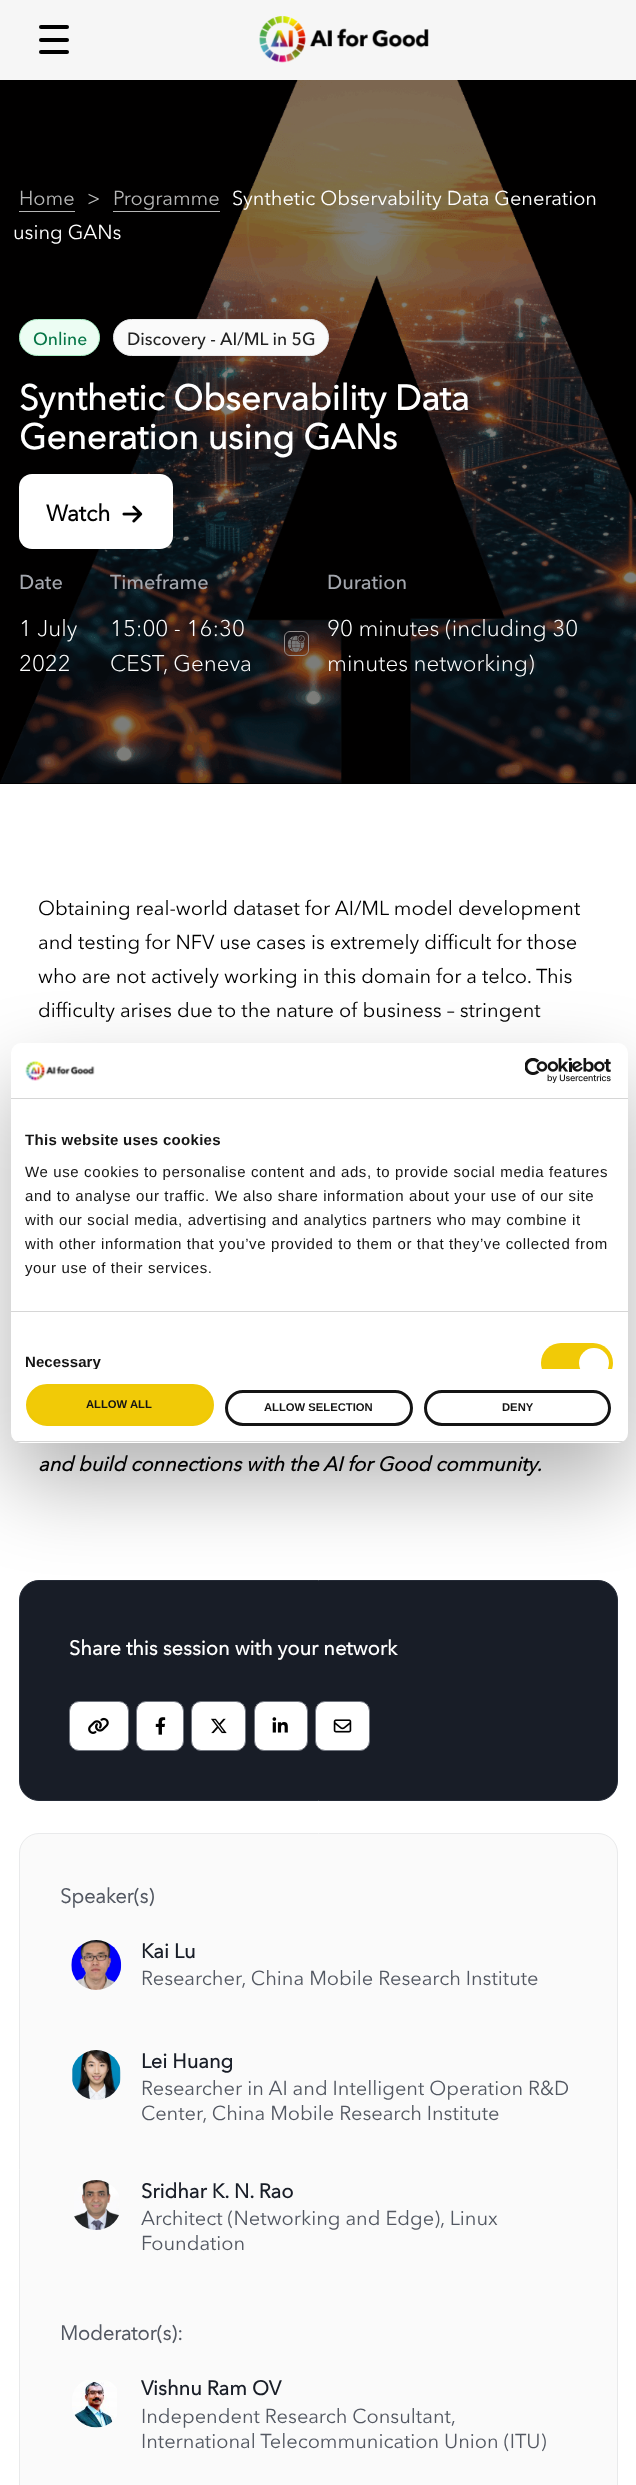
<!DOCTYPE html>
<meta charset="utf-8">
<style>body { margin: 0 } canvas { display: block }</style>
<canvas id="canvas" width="636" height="2485"></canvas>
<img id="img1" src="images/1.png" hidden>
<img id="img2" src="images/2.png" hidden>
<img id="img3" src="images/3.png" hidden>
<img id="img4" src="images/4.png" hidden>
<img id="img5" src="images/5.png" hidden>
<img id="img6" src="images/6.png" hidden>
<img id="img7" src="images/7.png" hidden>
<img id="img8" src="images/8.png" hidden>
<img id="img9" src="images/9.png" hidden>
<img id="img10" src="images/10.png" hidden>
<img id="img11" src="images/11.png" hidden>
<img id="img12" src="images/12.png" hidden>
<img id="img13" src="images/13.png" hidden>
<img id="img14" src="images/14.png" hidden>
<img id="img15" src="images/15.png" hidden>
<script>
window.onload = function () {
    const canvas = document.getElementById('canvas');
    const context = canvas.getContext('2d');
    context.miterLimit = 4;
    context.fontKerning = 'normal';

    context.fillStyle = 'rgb(246, 246, 246)';
    context.fillRect(0, 0, 636, 2485);
    context.fillStyle = 'rgb(0, 0, 0)';
    context.beginPath();
    context.roundRect(39, 38, 30, 4, 2);
    context.fill();
    context.beginPath();
    context.roundRect(39, 25, 30, 4, 2);
    context.fill();
    context.beginPath();
    context.roundRect(39, 50, 30, 4, 2);
    context.fill();
    context.drawImage(document.getElementById('img1'), 259, 16, 170, 47);
    context.fillStyle = 'rgb(255, 255, 255)';
    context.fillRect(0, 784, 636, 1701);
    context.fillStyle = 'rgb(0, 0, 0)';
    context.fillRect(0, 80, 636, 704);
    context.drawImage(document.getElementById('img2'), 0, 80, 636, 704);
    context.fillStyle = 'rgb(182, 182, 182)';
    context.fillRect(19, 211, 56, 1);
    context.fillRect(113, 211, 107, 1);
    context.fillStyle = 'rgb(236, 253, 243)';
    context.beginPath();
    context.roundRect(19.5, 319.5, 80, 36, 18);
    context.fill();
    context.strokeStyle = 'rgb(171, 239, 198)';
    context.stroke();
    context.fillStyle = 'rgb(250, 250, 250)';
    context.beginPath();
    context.roundRect(113.5, 319.5, 215, 36, 18);
    context.fill();
    context.strokeStyle = 'rgb(233, 234, 235)';
    context.stroke();
    context.fillStyle = 'rgb(255, 255, 255)';
    context.beginPath();
    context.roundRect(19, 474, 154, 75, 13);
    context.fill();
    context.drawImage(document.getElementById('img3'), 122, 505, 21, 18);
    context.beginPath();
    context.roundRect(284.5, 631.5, 24, 24, 5.5);
    context.strokeStyle = 'rgb(147, 141, 141)';
    context.stroke();
    context.drawImage(document.getElementById('img4'), 287, 635, 18, 18);
    context.fillStyle = 'rgb(24, 29, 39)';
    context.beginPath();
    context.roundRect(19.5, 1580.5, 598, 220, 19.5);
    context.fill();
    context.strokeStyle = 'rgb(37, 43, 55)';
    context.stroke();
    context.fillStyle = 'rgb(255, 255, 255)';
    context.beginPath();
    context.roundRect(69.5, 1701.5, 59, 49, 9.5);
    context.fill();
    context.strokeStyle = 'rgb(113, 118, 128)';
    context.stroke();
    context.drawImage(document.getElementById('img5'), 88, 1717, 21, 17);
    context.beginPath();
    context.roundRect(136.5, 1701.5, 47, 49, 9.5);
    context.fill();
    context.stroke();
    context.drawImage(document.getElementById('img6'), 155, 1717, 11, 18);
    context.beginPath();
    context.roundRect(191.5, 1701.5, 54, 49, 9.5);
    context.fill();
    context.stroke();
    context.drawImage(document.getElementById('img7'), 211, 1718, 16, 16);
    context.beginPath();
    context.roundRect(254.5, 1701.5, 53, 49, 9.5);
    context.fill();
    context.stroke();
    context.drawImage(document.getElementById('img8'), 272, 1717, 16, 16);
    context.beginPath();
    context.roundRect(315.5, 1701.5, 54, 49, 9.5);
    context.fill();
    context.stroke();
    context.drawImage(document.getElementById('img9'), 333, 1719, 19, 14);
    context.fillStyle = 'rgb(250, 250, 250)';
    context.beginPath();
    context.roundRect(19.5, 1833.5, 598, 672, 19.5);
    context.fill();
    context.strokeStyle = 'rgb(233, 234, 235)';
    context.stroke();
    context.drawImage(document.getElementById('img10'), 71, 1940, 51, 50);
    context.drawImage(document.getElementById('img11'), 72, 2050, 49, 50);
    context.drawImage(document.getElementById('img12'), 74, 2180, 45, 50);
    context.drawImage(document.getElementById('img13'), 72, 2380, 45, 48);
    context.fillStyle = 'rgba(0, 0, 0, 0.3)';
    context.filter = 'blur(42.5px)';
    context.beginPath();
    context.roundRect(11, 1083, 617, 400, 10);
    context.fill();
    context.filter = 'none';
    context.fillStyle = 'rgb(255, 255, 255)';
    context.beginPath();
    context.roundRect(11, 1043, 617, 400, 10);
    context.fill();
    context.fillStyle = 'rgb(214, 214, 214)';
    context.fillRect(11, 1098, 617, 1);
    context.drawImage(document.getElementById('img14'), 25, 1060, 70, 21);
    context.drawImage(document.getElementById('img15'), 525, 1058, 86, 25);
    context.fillRect(11, 1311, 617, 1);
    context.save();
    context.beginPath();
    context.rect(11, 1099, 617, 270);
    context.clip();
    context.fillStyle = 'rgb(241, 202, 7)';
    context.beginPath();
    context.roundRect(541, 1343, 72, 40, 20);
    context.fill();
    context.fillStyle = 'rgb(255, 255, 255)';
    context.beginPath();
    context.arc(594, 1363, 15, 0, 2 * Math.PI);
    context.fill();
    context.restore();
    context.save();
    context.beginPath();
    context.roundRect(11, 1043, 617, 400, 10);
    context.clip();
    context.fillRect(11, 1441, 617, 1);
    context.restore();
    context.fillStyle = 'rgb(241, 202, 7)';
    context.beginPath();
    context.roundRect(27.5, 1385.5, 185, 39, 19.5);
    context.fill();
    context.strokeStyle = 'rgb(239, 201, 7)';
    context.lineWidth = 3;
    context.stroke();
    context.beginPath();
    context.roundRect(226.5, 1391.5, 185, 33, 16.5);
    context.strokeStyle = 'rgb(20, 20, 20)';
    context.stroke();
    context.beginPath();
    context.roundRect(425.5, 1391.5, 184, 33, 16.5);
    context.stroke();
    context.font = '20px "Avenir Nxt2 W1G"';
    context.fillStyle = 'rgb(182, 182, 182)';
    context.fillText('Home', 19, 205);
    context.fillStyle = 'rgb(190, 190, 190)';
    context.fillText('>', 87, 205);
    context.fillStyle = 'rgb(182, 182, 182)';
    context.fillText('Programme', 113, 205);
    context.fillStyle = 'rgb(255, 255, 255)';
    context.fillText('Synthetic Observability Data Generation', 232, 205);
    context.fillText('using GANs', 13, 239);
    context.font = '500 17.5px "Avenir Nxt2 W1G"';
    context.fillStyle = 'rgb(6, 118, 71)';
    context.fillText('Online', 33, 345);
    context.fillStyle = 'rgb(34, 34, 34)';
    context.fillText('Discovery - AI/ML in 5G', 127, 345);
    context.font = 'bold 35px "Avenir Nxt2 W1G"';
    context.fillStyle = 'rgb(255, 255, 255)';
    context.fillText('Synthetic Observability Data', 19, 410);
    context.fillText('Generation using GANs', 19, 449);
    context.font = 'bold 22.5px "Avenir Nxt2 W1G"';
    context.fillStyle = 'rgb(0, 0, 0)';
    context.fillText('Watch', 46, 521);
    context.font = '500 20px "Avenir Nxt2 W1G"';
    context.fillStyle = 'rgb(164, 167, 174)';
    context.fillText('Date', 19, 589);
    context.font = '300 22.5px "Avenir Nxt2 W1G"';
    context.fillStyle = 'rgb(255, 255, 255)';
    context.fillText('1 July', 19, 636);
    context.fillText('2022', 19, 671);
    context.font = '500 20px "Avenir Nxt2 W1G"';
    context.fillStyle = 'rgb(164, 167, 174)';
    context.fillText('Timeframe', 110, 589);
    context.font = '300 22.5px "Avenir Nxt2 W1G"';
    context.fillStyle = 'rgb(255, 255, 255)';
    context.fillText('15:00 - 16:30', 110, 636);
    context.fillText('CEST, Geneva', 110, 671);
    context.font = '500 20px "Avenir Nxt2 W1G"';
    context.fillStyle = 'rgb(164, 167, 174)';
    context.fillText('Duration', 327, 589);
    context.font = '300 22.5px "Avenir Nxt2 W1G"';
    context.fillStyle = 'rgb(255, 255, 255)';
    context.fillText('90 minutes (including 30', 327, 636);
    context.fillText('minutes networking)', 327, 671);
    context.font = '20px "Avenir Nxt2 W1G"';
    context.fillStyle = 'rgb(0, 0, 0)';
    context.fillText('Obtaining real-world dataset for AI/ML model development', 38, 915);
    context.fillText('and testing for NFV use cases is extremely difficult for those', 38, 949);
    context.fillText('who are not actively working in this domain for a telco. This', 38, 983);
    context.fillText('difficulty arises due to the nature of business – stringent', 38, 1017);
    context.font = 'italic bold 20px "Avenir Nxt2 W1G"';
    context.fillText('and build connections with the AI for Good community.', 38, 1471);
    context.font = 'bold 20px "Avenir Nxt2 W1G"';
    context.fillStyle = 'rgb(255, 255, 255)';
    context.fillText('Share this session with your network', 69, 1655);
    context.font = 'bold 20px "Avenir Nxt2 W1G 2"';
    context.fillStyle = 'rgb(83, 88, 98)';
    context.fillText('Speaker(s)', 60, 1903);
    context.font = 'bold 20px "Avenir Nxt2 W1G"';
    context.fillStyle = 'rgb(24, 29, 39)';
    context.fillText('Kai Lu', 141, 1958);
    context.font = '20px "Avenir Nxt2 W1G"';
    context.fillStyle = 'rgb(83, 88, 98)';
    context.fillText('Researcher, China Mobile Research Institute', 141, 1985);
    context.font = 'bold 20px "Avenir Nxt2 W1G"';
    context.fillStyle = 'rgb(24, 29, 39)';
    context.fillText('Lei Huang', 141, 2068);
    context.font = '20px "Avenir Nxt2 W1G"';
    context.fillStyle = 'rgb(83, 88, 98)';
    context.fillText('Researcher in AI and Intelligent Operation R&D', 141, 2095);
    context.fillText('Center, China Mobile Research Institute', 141, 2120);
    context.font = 'bold 20px "Avenir Nxt2 W1G"';
    context.fillStyle = 'rgb(24, 29, 39)';
    context.fillText('Sridhar K. N. Rao', 141, 2198);
    context.font = '20px "Avenir Nxt2 W1G"';
    context.fillStyle = 'rgb(83, 88, 98)';
    context.fillText('Architect (Networking and Edge), Linux', 141, 2225);
    context.fillText('Foundation', 141, 2250);
    context.font = 'bold 20px "Avenir Nxt2 W1G 2"';
    context.fillText('Moderator(s):', 60, 2340);
    context.font = 'bold 20px "Avenir Nxt2 W1G"';
    context.fillStyle = 'rgb(24, 29, 39)';
    context.fillText('Vishnu Ram OV', 141, 2395);
    context.font = '20px "Avenir Nxt2 W1G"';
    context.fillStyle = 'rgb(83, 88, 98)';
    context.fillText('Independent Research Consultant,', 141, 2423);
    context.fillText('International Telecommunication Union (ITU)', 141, 2448);
    context.letterSpacing = '0.3px';
    context.font = 'bold 15px Liberation Sans';
    context.fillStyle = 'rgb(20, 20, 20)';
    context.fillText('This website uses cookies', 25, 1145);
    context.letterSpacing = '0.62px';
    context.font = '15px Liberation Sans';
    context.fillText('We use cookies to personalise content and ads, to provide social media features', 25, 1177);
    context.fillText('and to analyse our traffic. We also share information about your use of our site', 25, 1201);
    context.fillText('with our social media, advertising and analytics partners who may combine it', 25, 1225);
    context.fillText('with other information that you’ve provided to them or that they’ve collected from', 25, 1249);
    context.fillText('your use of their services.', 25, 1273);
    context.save();
    context.beginPath();
    context.rect(11, 1099, 617, 270);
    context.clip();
    context.letterSpacing = '0.1px';
    context.font = 'bold 15px Liberation Sans';
    context.fillText('Necessary', 25, 1367);
    context.restore();
    context.letterSpacing = '0px';
    context.font = 'bold 11.25px Liberation Sans';
    context.fillText('ALLOW ALL', 86, 1408);
    context.fillText('ALLOW SELECTION', 264, 1411);
    context.fillText('DENY', 502, 1411);
};
</script>
